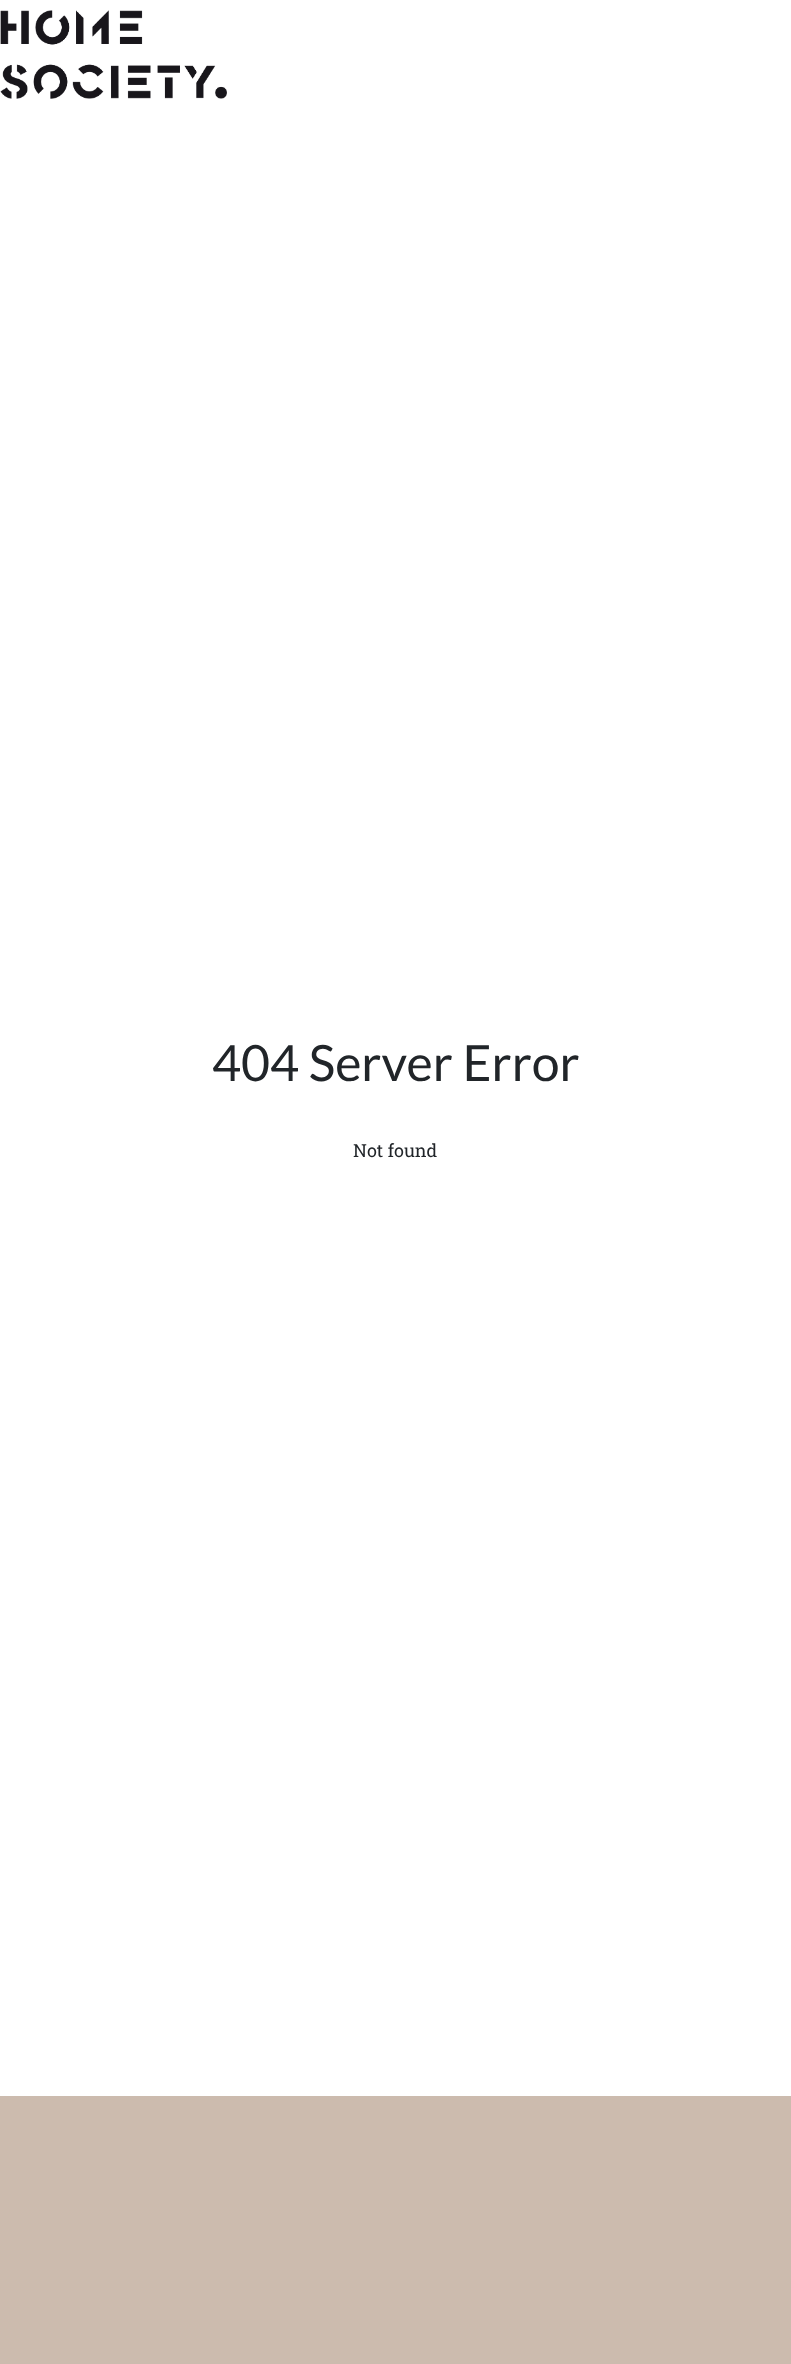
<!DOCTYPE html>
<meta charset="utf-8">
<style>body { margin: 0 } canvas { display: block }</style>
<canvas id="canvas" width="791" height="2364"></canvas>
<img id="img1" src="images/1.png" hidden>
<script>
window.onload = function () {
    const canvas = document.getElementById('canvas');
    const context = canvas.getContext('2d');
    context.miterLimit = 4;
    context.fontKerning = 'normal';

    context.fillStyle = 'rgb(255, 255, 255)';
    context.fillRect(0, 0, 791, 2364);
    context.drawImage(document.getElementById('img1'), 0, 10, 227, 89);
    context.fillStyle = 'rgb(204, 187, 174)';
    context.fillRect(0, 2096, 791, 268);
    context.font = '50px Lato';
    context.fillStyle = 'rgb(33, 37, 41)';
    context.fillText('404 Server Error', 212, 1081);
    context.font = '18px Roboto Slab';
    context.fillText('Not found', 353, 1157);
};
</script>
